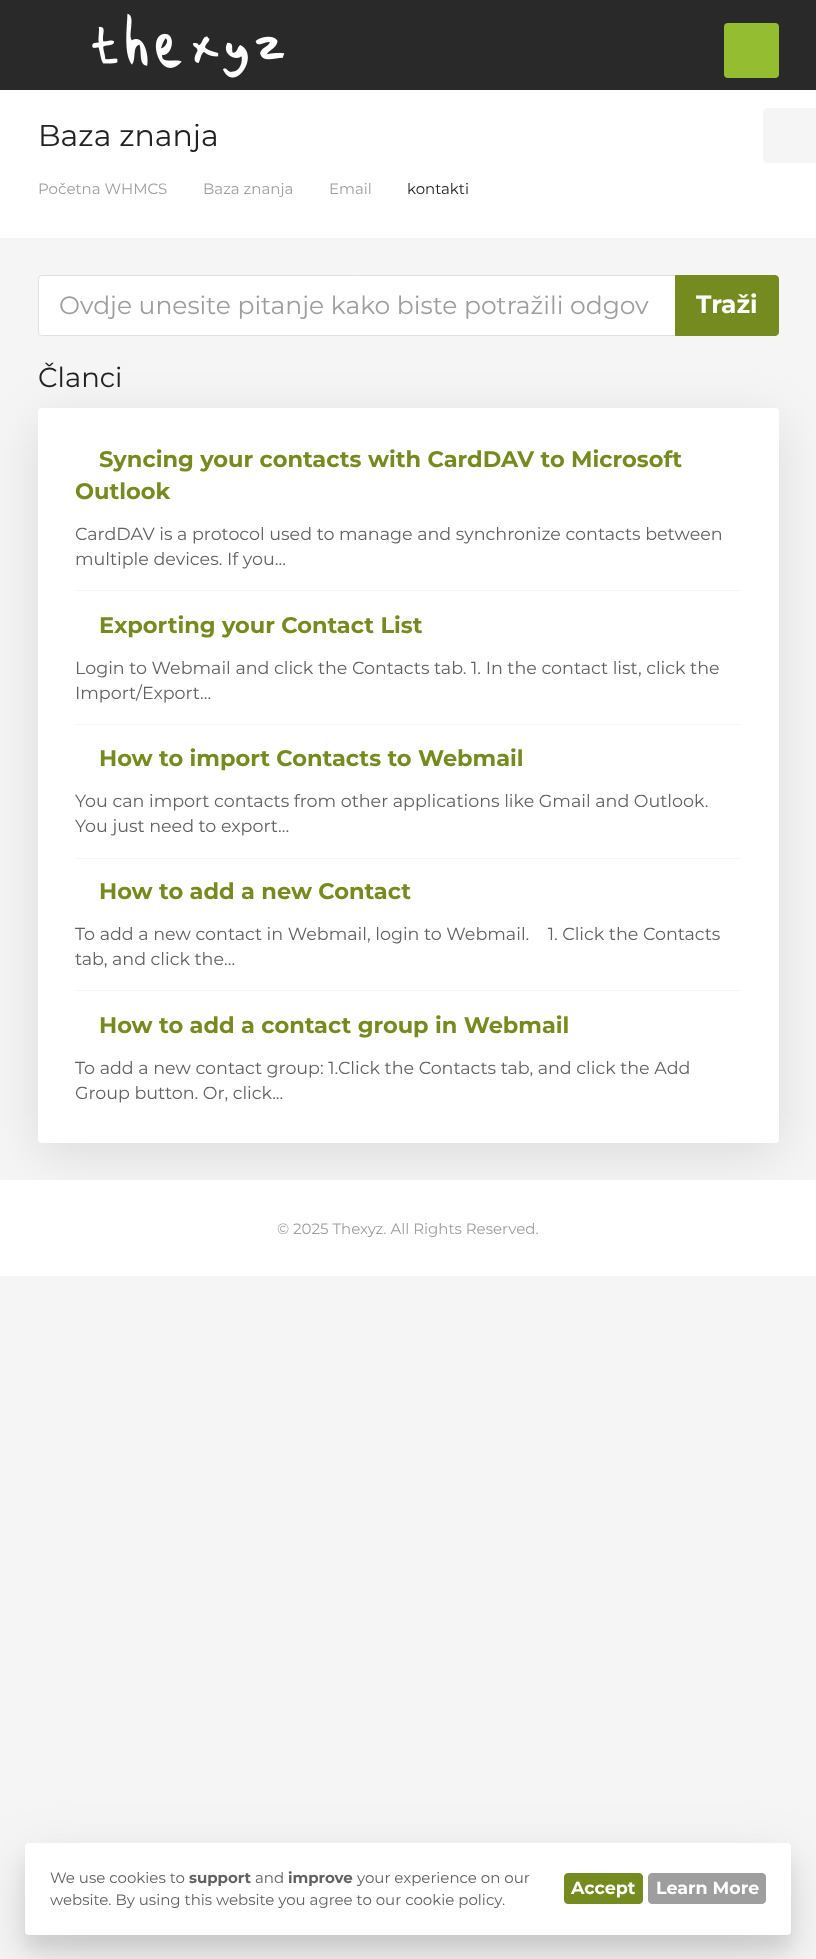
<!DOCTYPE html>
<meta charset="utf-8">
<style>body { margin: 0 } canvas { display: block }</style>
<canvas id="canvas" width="816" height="1959"></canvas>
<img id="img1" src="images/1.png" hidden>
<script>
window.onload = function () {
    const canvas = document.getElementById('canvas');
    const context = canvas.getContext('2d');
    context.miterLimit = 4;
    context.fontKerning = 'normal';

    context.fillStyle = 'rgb(245, 245, 245)';
    context.fillRect(0, 0, 816, 1959);
    context.fillStyle = 'rgb(41, 41, 41)';
    context.fillRect(0, 0, 816, 90);
    context.drawImage(document.getElementById('img1'), 92, 13, 193, 65);
    context.fillStyle = 'rgb(148, 189, 49)';
    context.beginPath();
    context.roundRect(724, 23, 55, 55, 4);
    context.fill();
    context.fillStyle = 'rgb(255, 255, 255)';
    context.fillRect(0, 90, 816, 148);
    context.fillStyle = 'rgb(245, 245, 245)';
    context.beginPath();
    context.moveTo(767, 108);
    context.lineTo(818, 108);
    context.lineTo(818, 163);
    context.lineTo(767, 163);
    context.bezierCurveTo(765, 163, 763, 161, 763, 159);
    context.lineTo(763, 112);
    context.bezierCurveTo(763, 110, 765, 108, 767, 108);
    context.closePath();
    context.fill();
    context.fillStyle = 'rgb(255, 255, 255)';
    context.beginPath();
    context.roundRect(38.5, 275.5, 637, 60, [3.5, 0, 0, 3.5]);
    context.fill();
    context.strokeStyle = 'rgb(224, 224, 224)';
    context.stroke();
    context.fillStyle = 'rgb(118, 139, 31)';
    context.beginPath();
    context.roundRect(675.5, 275.5, 103, 60, [0, 3.5, 3.5, 0]);
    context.fill();
    context.strokeStyle = 'rgb(118, 139, 31)';
    context.stroke();
    context.fillStyle = 'rgba(0, 0, 0, 0.1)';
    context.filter = 'blur(25px)';
    context.beginPath();
    context.roundRect(38, 420, 741, 735, 4);
    context.fill();
    context.filter = 'none';
    context.fillStyle = 'rgb(255, 255, 255)';
    context.beginPath();
    context.roundRect(38, 408, 741, 735, 4);
    context.fill();
    context.fillStyle = 'rgb(245, 245, 245)';
    context.fillRect(75, 590, 666, 1);
    context.fillRect(75, 724, 666, 1);
    context.fillRect(75, 858, 666, 1);
    context.fillRect(75, 990, 666, 1);
    context.fillStyle = 'rgb(255, 255, 255)';
    context.fillRect(0, 1180, 816, 96);
    context.fillStyle = 'rgba(0, 0, 0, 0.1)';
    context.filter = 'blur(9.5px)';
    context.beginPath();
    context.roundRect(25, 1858, 766, 92, 4);
    context.fill();
    context.filter = 'none';
    context.filter = 'blur(31px)';
    context.beginPath();
    context.roundRect(25, 1864, 766, 92, 4);
    context.fill();
    context.filter = 'none';
    context.fillStyle = 'rgb(255, 255, 255)';
    context.beginPath();
    context.roundRect(25, 1843, 766, 92, 4);
    context.fill();
    context.fillStyle = 'rgb(118, 139, 31)';
    context.beginPath();
    context.roundRect(564.5, 1873.5, 78, 30, 3.5);
    context.fill();
    context.stroke();
    context.fillStyle = 'rgb(158, 158, 158)';
    context.beginPath();
    context.roundRect(648.5, 1873.5, 117, 30, 3.5);
    context.fill();
    context.strokeStyle = 'rgb(158, 158, 158)';
    context.stroke();
    context.font = '30px Montserrat';
    context.fillStyle = 'rgb(33, 33, 33)';
    context.fillText('Baza znanja', 38, 146);
    context.font = '15px Montserrat';
    context.fillStyle = 'rgb(158, 158, 158)';
    context.fillText('Početna WHMCS', 38, 194);
    context.fillText('Baza znanja', 203, 194);
    context.fillText('Email', 329, 194);
    context.fillStyle = 'rgb(33, 33, 33)';
    context.fillText('kontakti', 407, 194);
    context.font = '25px Montserrat';
    context.fillStyle = 'rgb(158, 158, 158)';
    context.fillText('Ovdje unesite pitanje kako biste potražili odgov', 59, 314);
    context.font = 'bold 25px Montserrat';
    context.fillStyle = 'rgb(255, 255, 255)';
    context.fillText('Traži', 696, 313);
    context.font = '27.5px Montserrat';
    context.fillStyle = 'rgb(33, 33, 33)';
    context.fillText('Članci', 38, 387);
    context.font = 'bold 22.5px Montserrat';
    context.fillStyle = 'rgb(118, 139, 31)';
    context.fillText('Syncing your contacts with CardDAV to Microsoft', 99, 467);
    context.fillText('Outlook', 75, 499);
    context.font = '17.5px Montserrat';
    context.fillStyle = 'rgb(97, 97, 97)';
    context.fillText('CardDAV is a protocol used to manage and synchronize contacts between', 75, 540);
    context.fillText('multiple devices. If you...', 75, 565);
    context.font = 'bold 22.5px Montserrat';
    context.fillStyle = 'rgb(118, 139, 31)';
    context.fillText('Exporting your Contact List', 99, 633);
    context.font = '17.5px Montserrat';
    context.fillStyle = 'rgb(97, 97, 97)';
    context.fillText('Login to Webmail and click the Contacts tab. 1. In the contact list, click the', 75, 674);
    context.fillText('Import/Export...', 75, 699);
    context.font = 'bold 22.5px Montserrat';
    context.fillStyle = 'rgb(118, 139, 31)';
    context.fillText('How to import Contacts to Webmail', 99, 766);
    context.font = '17.5px Montserrat';
    context.fillStyle = 'rgb(97, 97, 97)';
    context.fillText('You can import contacts from other applications like Gmail and Outlook.', 75, 807);
    context.fillText('You just need to export...', 75, 832);
    context.font = 'bold 22.5px Montserrat';
    context.fillStyle = 'rgb(118, 139, 31)';
    context.fillText('How to add a new Contact', 99, 899);
    context.font = '17.5px Montserrat';
    context.fillStyle = 'rgb(97, 97, 97)';
    context.fillText('To add a new contact in Webmail, login to Webmail.    1. Click the Contacts', 75, 940);
    context.fillText('tab, and click the...', 75, 965);
    context.font = 'bold 22.5px Montserrat';
    context.fillStyle = 'rgb(118, 139, 31)';
    context.fillText('How to add a contact group in Webmail', 99, 1033);
    context.font = '17.5px Montserrat';
    context.fillStyle = 'rgb(97, 97, 97)';
    context.fillText('To add a new contact group: 1.Click the Contacts tab, and click the Add', 75, 1074);
    context.fillText('Group button. Or, click...', 75, 1099);
    context.font = '15px Montserrat';
    context.fillStyle = 'rgb(158, 158, 158)';
    context.fillText('© 2025 Thexyz. All Rights Reserved.', 277, 1234);
    context.fillStyle = 'rgb(97, 97, 97)';
    context.fillText('We use cookies to', 50, 1883);
    context.font = 'bold 15px Montserrat';
    context.fillText('support', 189, 1883);
    context.font = '15px Montserrat';
    context.fillText('and', 255, 1883);
    context.font = 'bold 15px Montserrat';
    context.fillText('improve', 288, 1883);
    context.font = '15px Montserrat';
    context.fillText('your experience on our', 357, 1883);
    context.fillText('website. By using this website you agree to our cookie policy.', 50, 1905);
    context.font = 'bold 17.5px Montserrat';
    context.fillStyle = 'rgb(255, 255, 255)';
    context.fillText('Accept', 571, 1894);
    context.fillText('Learn More', 656, 1894);
};
</script>
